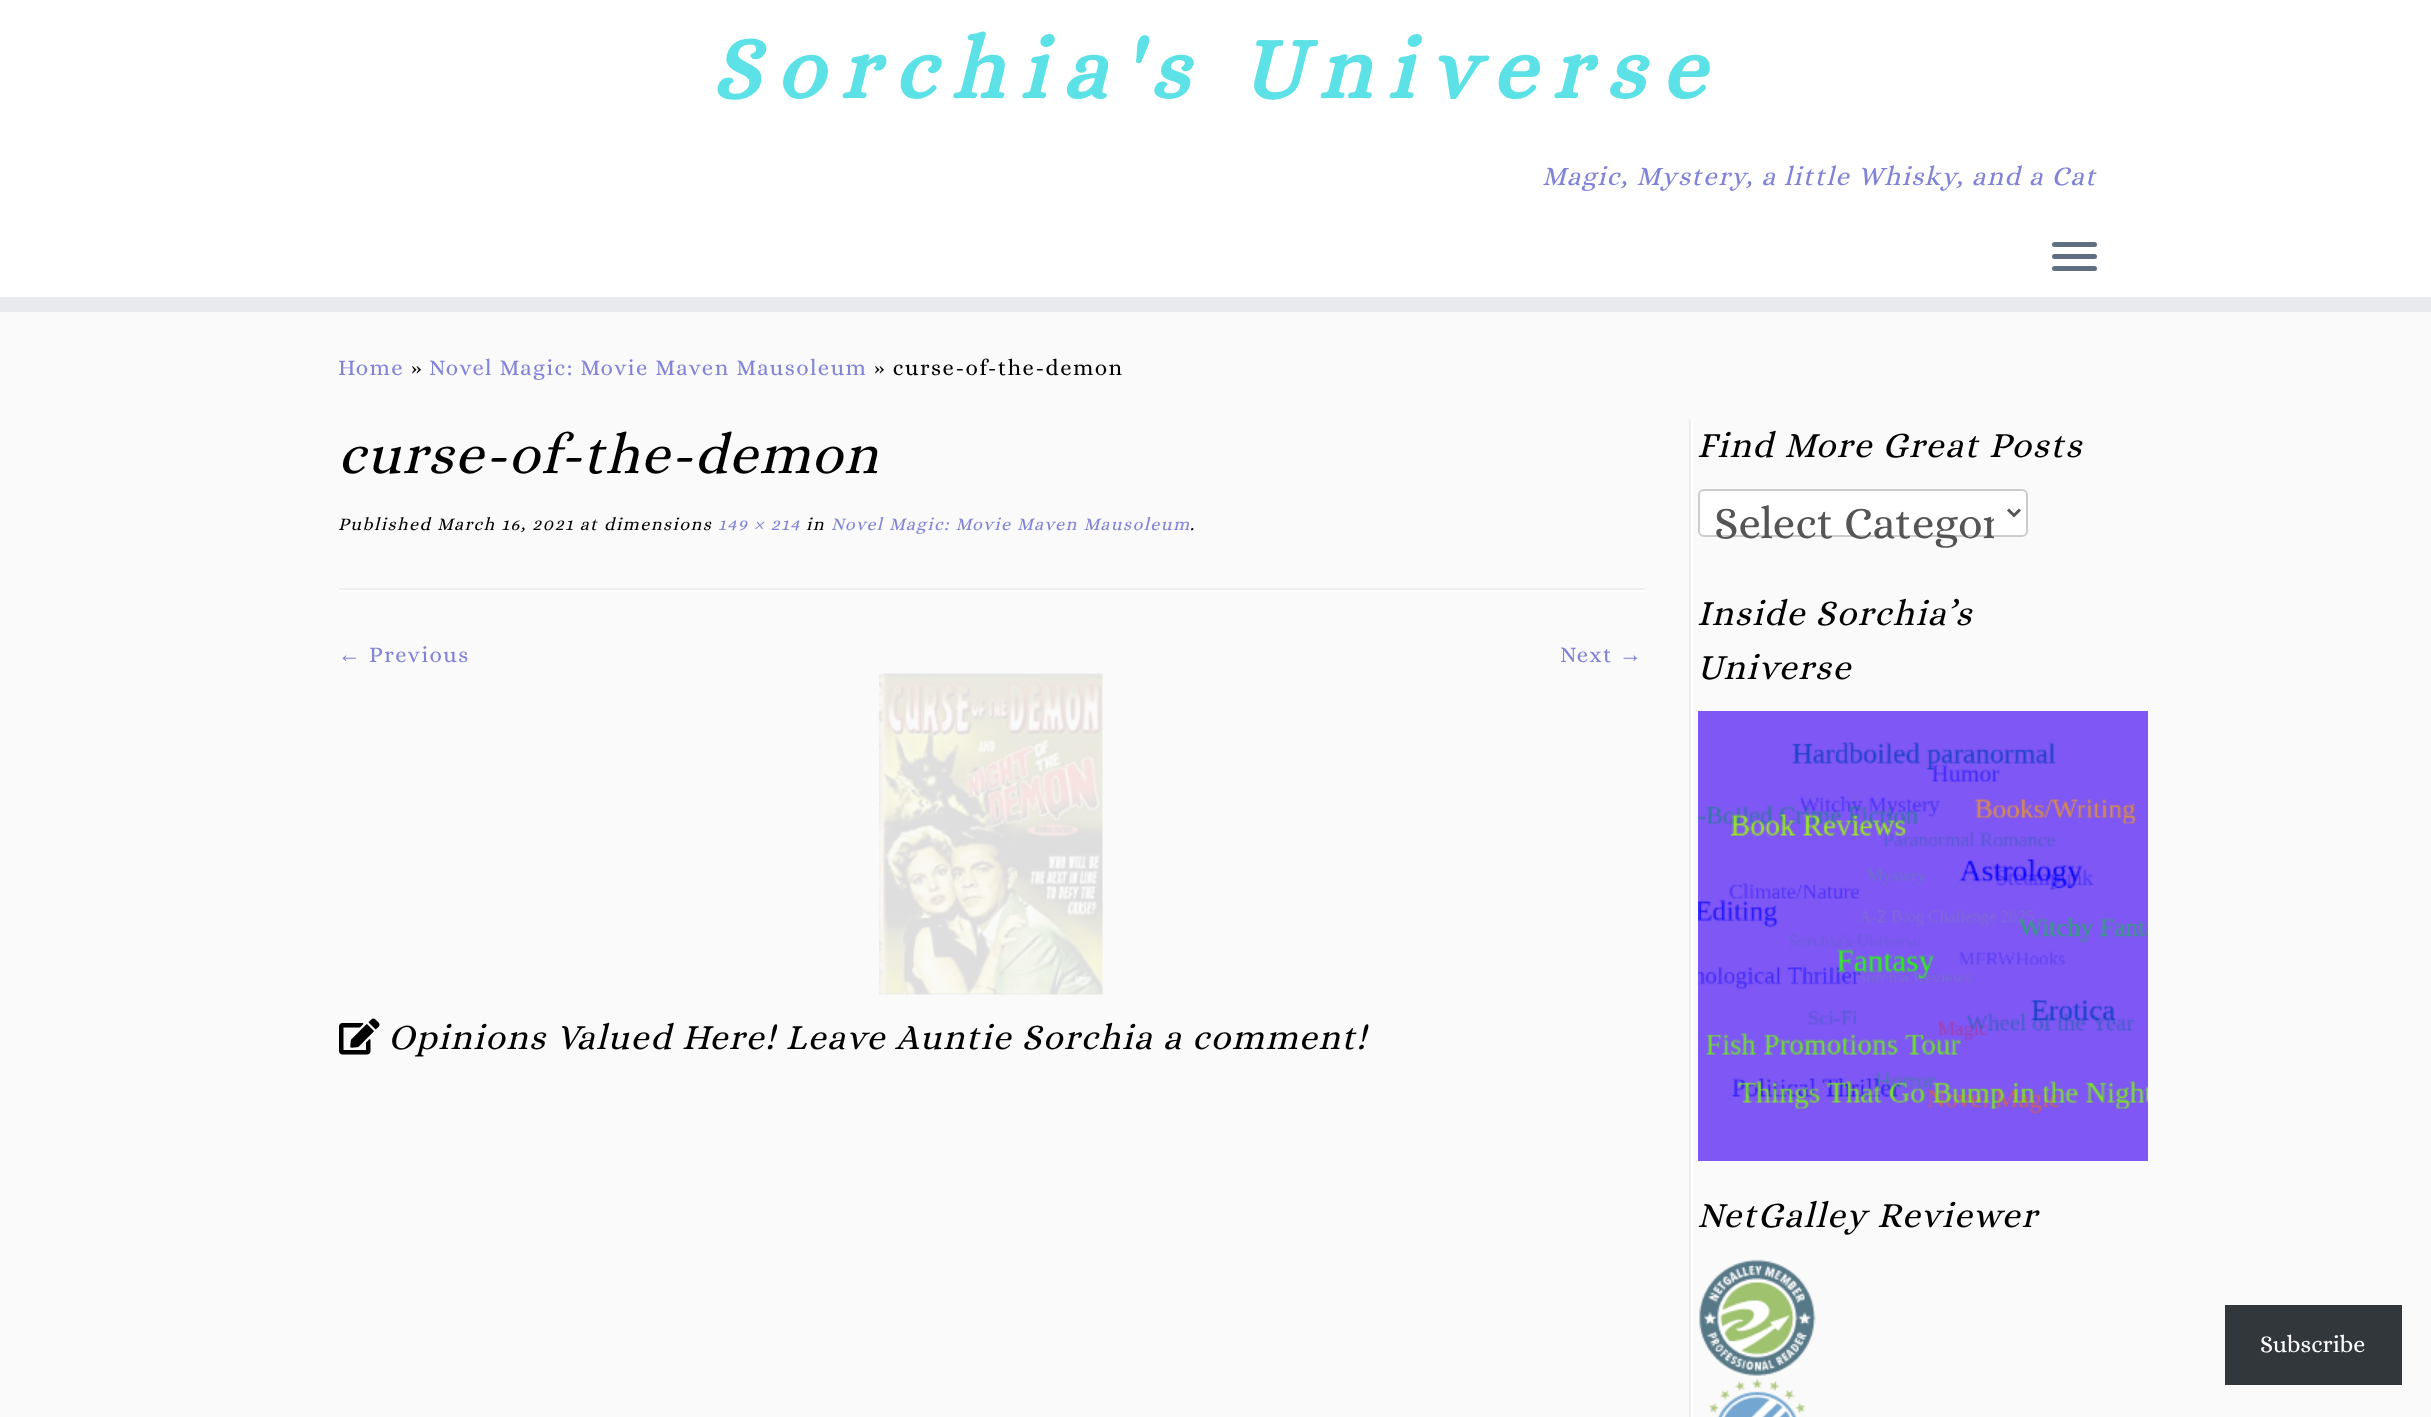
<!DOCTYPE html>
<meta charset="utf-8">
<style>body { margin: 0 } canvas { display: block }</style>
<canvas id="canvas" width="2431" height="1417"></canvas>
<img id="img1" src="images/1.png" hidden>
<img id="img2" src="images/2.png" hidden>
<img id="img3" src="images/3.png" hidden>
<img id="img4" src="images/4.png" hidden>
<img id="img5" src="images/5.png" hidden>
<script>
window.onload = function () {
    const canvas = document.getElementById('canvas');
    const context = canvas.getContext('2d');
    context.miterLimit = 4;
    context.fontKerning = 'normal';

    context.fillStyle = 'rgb(250, 250, 250)';
    context.fillRect(0, 0, 2431, 1417);
    context.fillStyle = 'rgb(255, 255, 255)';
    context.fillRect(0, 0, 2431, 297);
    context.fillStyle = 'rgb(233, 234, 238)';
    context.fillRect(0, 297, 2431, 15);
    context.fillStyle = 'rgb(95, 111, 129)';
    context.beginPath();
    context.roundRect(2052, 242, 45, 5, 2.5);
    context.fill();
    context.beginPath();
    context.roundRect(2052, 254, 45, 5, 2.5);
    context.fill();
    context.beginPath();
    context.roundRect(2052, 266, 45, 5, 2.5);
    context.fill();
    context.fillStyle = 'rgb(238, 238, 238)';
    context.fillRect(339, 588, 1305, 2);
    context.fillStyle = 'rgb(255, 255, 255)';
    context.fillRect(339, 590, 1305, 2);
    context.drawImage(document.getElementById('img1'), 879, 673, 224, 322);
    context.drawImage(document.getElementById('img2'), 339, 1018, 41, 37);
    context.fillStyle = 'rgb(238, 238, 238)';
    context.fillRect(1689, 419, 2, 998);
    context.fillStyle = 'rgb(255, 255, 255)';
    context.fillRect(1691, 419, 2, 998);
    context.beginPath();
    context.roundRect(1699, 490, 328, 46, 5);
    context.fill();
    context.strokeStyle = 'rgb(204, 204, 204)';
    context.lineWidth = 2;
    context.stroke();
    context.beginPath();
    context.moveTo(2008, 509.5);
    context.lineTo(2014, 515.5);
    context.lineTo(2020, 509.5);
    context.strokeStyle = 'rgb(85, 85, 85)';
    context.lineWidth = 3;
    context.stroke();
    context.fillStyle = 'rgb(127, 87, 244)';
    context.fillRect(1698, 711, 450, 450);
    context.drawImage(document.getElementById('img3'), 1698, 742, 450, 372);
    context.drawImage(document.getElementById('img4'), 1699, 1259, 117, 117);
    context.drawImage(document.getElementById('img5'), 1708, 1378, 97, 39);
    context.fillStyle = 'rgb(50, 55, 60)';
    context.fillRect(2225, 1305, 177, 80);
    context.letterSpacing = '16.5px';
    context.font = 'italic bold 87.8px Alice';
    context.fillStyle = 'rgb(92, 225, 230)';
    context.fillText('Sorchia\'s Universe', 711, 98);
    context.letterSpacing = '1.5px';
    context.font = 'italic 27px Alice';
    context.fillStyle = 'rgb(129, 131, 216)';
    context.fillText('Magic, Mystery, a little Whisky, and a Cat', 1542, 185);
    context.font = '22.6px Alice';
    context.fillText('Home', 338, 375);
    context.fillStyle = 'rgb(0, 0, 0)';
    context.fillText('»', 411, 375);
    context.fillStyle = 'rgb(129, 131, 216)';
    context.fillText('Novel Magic: Movie Maven Mausoleum', 429, 375);
    context.fillStyle = 'rgb(0, 0, 0)';
    context.fillText('» curse-of-the-demon', 874, 375);
    context.font = 'italic 57px Alice';
    context.fillText('curse-of-the-demon', 338, 473);
    context.font = 'italic 18px Alice';
    context.fillText('Published March 16, 2021 at dimensions', 338, 530);
    context.fillStyle = 'rgb(129, 131, 216)';
    context.fillText('149 × 214', 718, 530);
    context.fillStyle = 'rgb(0, 0, 0)';
    context.fillText('in', 806, 530);
    context.fillStyle = 'rgb(129, 131, 216)';
    context.fillText('Novel Magic: Movie Maven Mausoleum', 831, 530);
    context.fillStyle = 'rgb(0, 0, 0)';
    context.fillText('.', 1190, 530);
    context.font = '22.6px Liberation Serif';
    context.fillStyle = 'rgb(129, 131, 216)';
    context.fillText('←', 338, 662);
    context.font = '22.6px Alice';
    context.fillText('Previous', 369, 662);
    context.fillText('Next', 1560, 662);
    context.font = '22.6px Liberation Serif';
    context.fillText('→', 1619, 662);
    context.font = 'italic 36px Alice';
    context.fillStyle = 'rgb(0, 0, 0)';
    context.fillText('Opinions Valued Here! Leave Auntie Sorchia a comment!', 388, 1049);
    context.fillText('Find More Great Posts', 1697, 457);
    context.save();
    context.beginPath();
    context.rect(1715, 497, 279, 54);
    context.clip();
    context.letterSpacing = '0px';
    context.font = '45px Alice';
    context.fillStyle = 'rgb(85, 85, 85)';
    context.fillText('Select Categor', 1714, 538);
    context.restore();
    context.fillText('Inside Sorchia’s', 1697, 625);
    context.fillText('Universe', 1697, 679);
    context.fillText('NetGalley Reviewer', 1697, 1227);
    context.letterSpacing = '0px';
    context.font = '24px Alice';
    context.fillStyle = 'rgb(255, 255, 255)';
    context.fillText('Subscribe', 2260, 1352);
};
</script>
